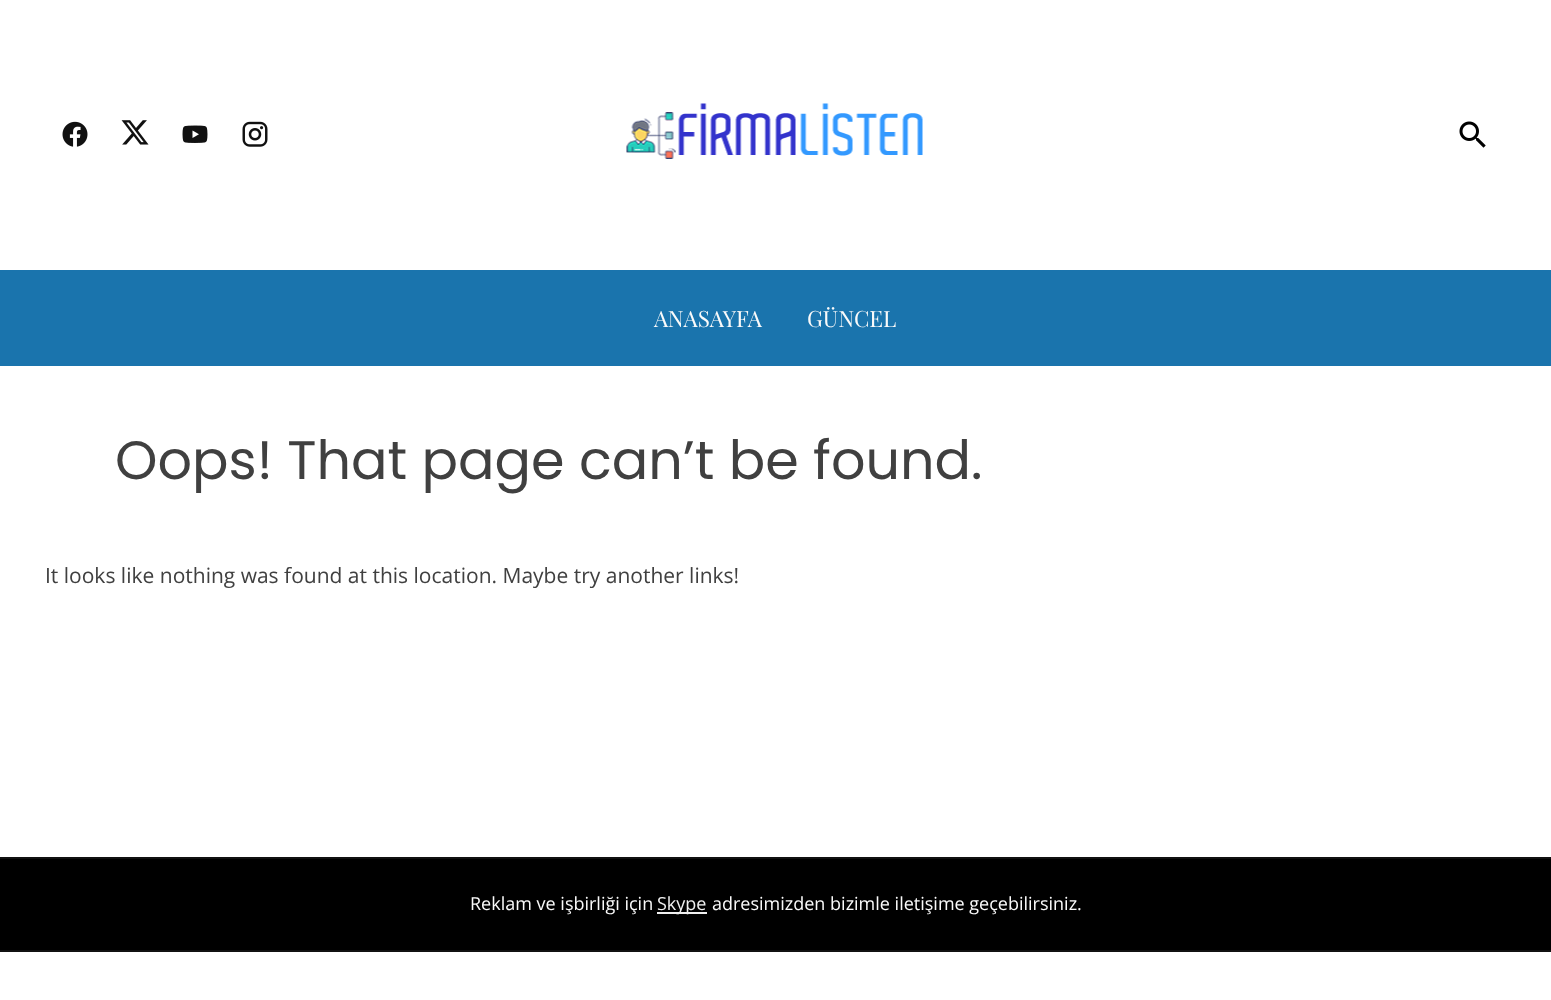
<!DOCTYPE html>
<meta charset="utf-8">
<style>body { margin: 0 } canvas { display: block }</style>
<canvas id="canvas" width="1551" height="1000"></canvas>
<img id="img1" src="images/1.png" hidden>
<img id="img2" src="images/2.png" hidden>
<img id="img3" src="images/3.png" hidden>
<img id="img4" src="images/4.png" hidden>
<img id="img5" src="images/5.png" hidden>
<img id="img6" src="images/6.png" hidden>
<script>
window.onload = function () {
    const canvas = document.getElementById('canvas');
    const context = canvas.getContext('2d');
    context.miterLimit = 4;
    context.fontKerning = 'normal';

    context.fillStyle = 'rgb(255, 255, 255)';
    context.fillRect(0, 0, 1551, 1000);
    context.drawImage(document.getElementById('img1'), 62, 121, 26, 26);
    context.drawImage(document.getElementById('img2'), 121, 120, 28, 25);
    context.drawImage(document.getElementById('img3'), 182, 125, 26, 18);
    context.drawImage(document.getElementById('img4'), 242, 121, 26, 26);
    context.drawImage(document.getElementById('img5'), 626, 103, 297, 56);
    context.drawImage(document.getElementById('img6'), 1459, 121, 27, 27);
    context.fillStyle = 'rgb(26, 116, 173)';
    context.fillRect(0, 270, 1551, 96);
    context.fillStyle = 'rgb(0, 0, 0)';
    context.fillRect(0, 859, 1551, 91);
    context.fillStyle = 'rgb(17, 17, 17)';
    context.fillRect(0, 857, 1551, 2);
    context.fillStyle = 'rgb(240, 240, 240)';
    context.fillRect(657, 912, 50, 2);
    context.fillStyle = 'rgb(17, 17, 17)';
    context.fillRect(0, 950, 1551, 2);
    context.font = '22.5px Playfair Display';
    context.fillStyle = 'rgb(250, 250, 250)';
    context.fillText('ANASAYFA', 654, 327);
    context.fillText('GÜNCEL', 807, 327);
    context.font = '54px Poppins';
    context.fillStyle = 'rgb(64, 64, 64)';
    context.fillText('Oops! That page can’t be found.', 115, 479);
    context.font = '21px Open Sans';
    context.fillText('It looks like nothing was found at this location. Maybe try another links!', 45, 583);
    context.font = '18px Open Sans';
    context.fillStyle = 'rgb(250, 250, 250)';
    context.fillText('Reklam ve işbirliği için', 470, 910);
    context.fillStyle = 'rgb(240, 240, 240)';
    context.fillText('Skype', 657, 910);
    context.fillStyle = 'rgb(250, 250, 250)';
    context.fillText('adresimizden bizimle iletişime geçebilirsiniz.', 712, 910);
};
</script>
